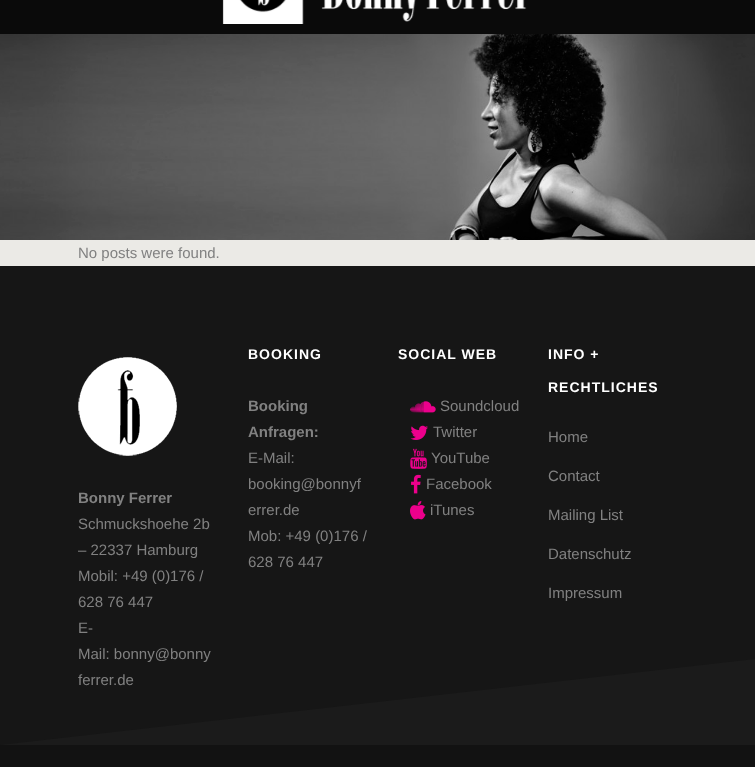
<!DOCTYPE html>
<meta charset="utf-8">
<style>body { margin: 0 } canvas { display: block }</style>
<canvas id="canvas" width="755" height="767"></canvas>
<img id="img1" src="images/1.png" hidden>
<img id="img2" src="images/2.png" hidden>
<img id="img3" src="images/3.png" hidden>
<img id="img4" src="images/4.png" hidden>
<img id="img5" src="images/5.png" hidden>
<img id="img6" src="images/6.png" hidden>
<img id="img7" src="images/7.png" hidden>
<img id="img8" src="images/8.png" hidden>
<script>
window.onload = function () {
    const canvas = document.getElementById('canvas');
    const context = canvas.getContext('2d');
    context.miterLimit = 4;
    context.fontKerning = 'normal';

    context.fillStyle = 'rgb(235, 234, 230)';
    context.fillRect(0, 0, 755, 767);
    context.fillStyle = 'rgb(10, 10, 10)';
    context.fillRect(0, 0, 755, 34);
    context.drawImage(document.getElementById('img1'), 222, 0, 305, 24);
    context.drawImage(document.getElementById('img2'), 0, 34, 755, 206);
    context.fillStyle = 'rgb(22, 22, 22)';
    context.fillRect(0, 266, 755, 479);
    context.drawImage(document.getElementById('img3'), 78, 357, 99, 99);
    context.drawImage(document.getElementById('img4'), 410, 401, 26, 12);
    context.drawImage(document.getElementById('img5'), 410, 425, 18, 15);
    context.drawImage(document.getElementById('img6'), 410, 448, 17, 21);
    context.drawImage(document.getElementById('img7'), 411, 474, 10, 20);
    context.drawImage(document.getElementById('img8'), 410, 500, 16, 20);
    context.fillStyle = 'rgb(27, 27, 27)';
    context.beginPath();
    context.moveTo(0, 745);
    context.lineTo(755, 659);
    context.lineTo(755, 745);
    context.closePath();
    context.fill();
    context.fillStyle = 'rgb(18, 18, 18)';
    context.fillRect(0, 745, 755, 22);
    context.font = '15px Liberation Sans';
    context.fillStyle = 'rgb(129, 129, 129)';
    context.fillText('No posts were found.', 78, 258);
    context.font = 'bold 15px Liberation Sans';
    context.fillText('Bonny Ferrer', 78, 503);
    context.font = '15px Liberation Sans';
    context.fillText('Schmuckshoehe 2b', 78, 529);
    context.fillText('– 22337 Hamburg', 78, 555);
    context.fillText('Mobil: +49 (0)176 /', 78, 581);
    context.fillText('628 76 447', 78, 607);
    context.fillText('E-', 78, 633);
    context.fillText('Mail: bonny@bonny', 78, 659);
    context.fillText('ferrer.de', 78, 685);
    context.letterSpacing = '1px';
    context.font = 'bold 14px Liberation Sans';
    context.fillStyle = 'rgb(255, 255, 255)';
    context.fillText('BOOKING', 248, 359);
    context.letterSpacing = '0px';
    context.font = 'bold 15px Liberation Sans';
    context.fillStyle = 'rgb(129, 129, 129)';
    context.fillText('Booking', 248, 411);
    context.fillText('Anfragen:', 248, 437);
    context.font = '15px Liberation Sans';
    context.fillText('E-Mail:', 248, 463);
    context.fillText('booking@bonnyf', 248, 489);
    context.fillText('errer.de', 248, 515);
    context.fillText('Mob: +49 (0)176 /', 248, 541);
    context.fillText('628 76 447', 248, 567);
    context.letterSpacing = '1px';
    context.font = 'bold 14px Liberation Sans';
    context.fillStyle = 'rgb(255, 255, 255)';
    context.fillText('SOCIAL WEB', 398, 359);
    context.letterSpacing = '0px';
    context.font = '15px Liberation Sans';
    context.fillStyle = 'rgb(129, 129, 129)';
    context.fillText('Soundcloud', 440, 411);
    context.fillText('Twitter', 433, 437);
    context.fillText('YouTube', 431, 463);
    context.fillText('Facebook', 426, 489);
    context.fillText('iTunes', 430, 515);
    context.letterSpacing = '1px';
    context.font = 'bold 14px Liberation Sans';
    context.fillStyle = 'rgb(255, 255, 255)';
    context.fillText('INFO +', 548, 359);
    context.fillText('RECHTLICHES', 548, 392);
    context.letterSpacing = '0px';
    context.font = '15px Liberation Sans';
    context.fillStyle = 'rgb(129, 129, 129)';
    context.fillText('Home', 548, 442);
    context.fillText('Contact', 548, 481);
    context.fillText('Mailing List', 548, 520);
    context.fillText('Datenschutz', 548, 559);
    context.fillText('Impressum', 548, 598);
};
</script>
